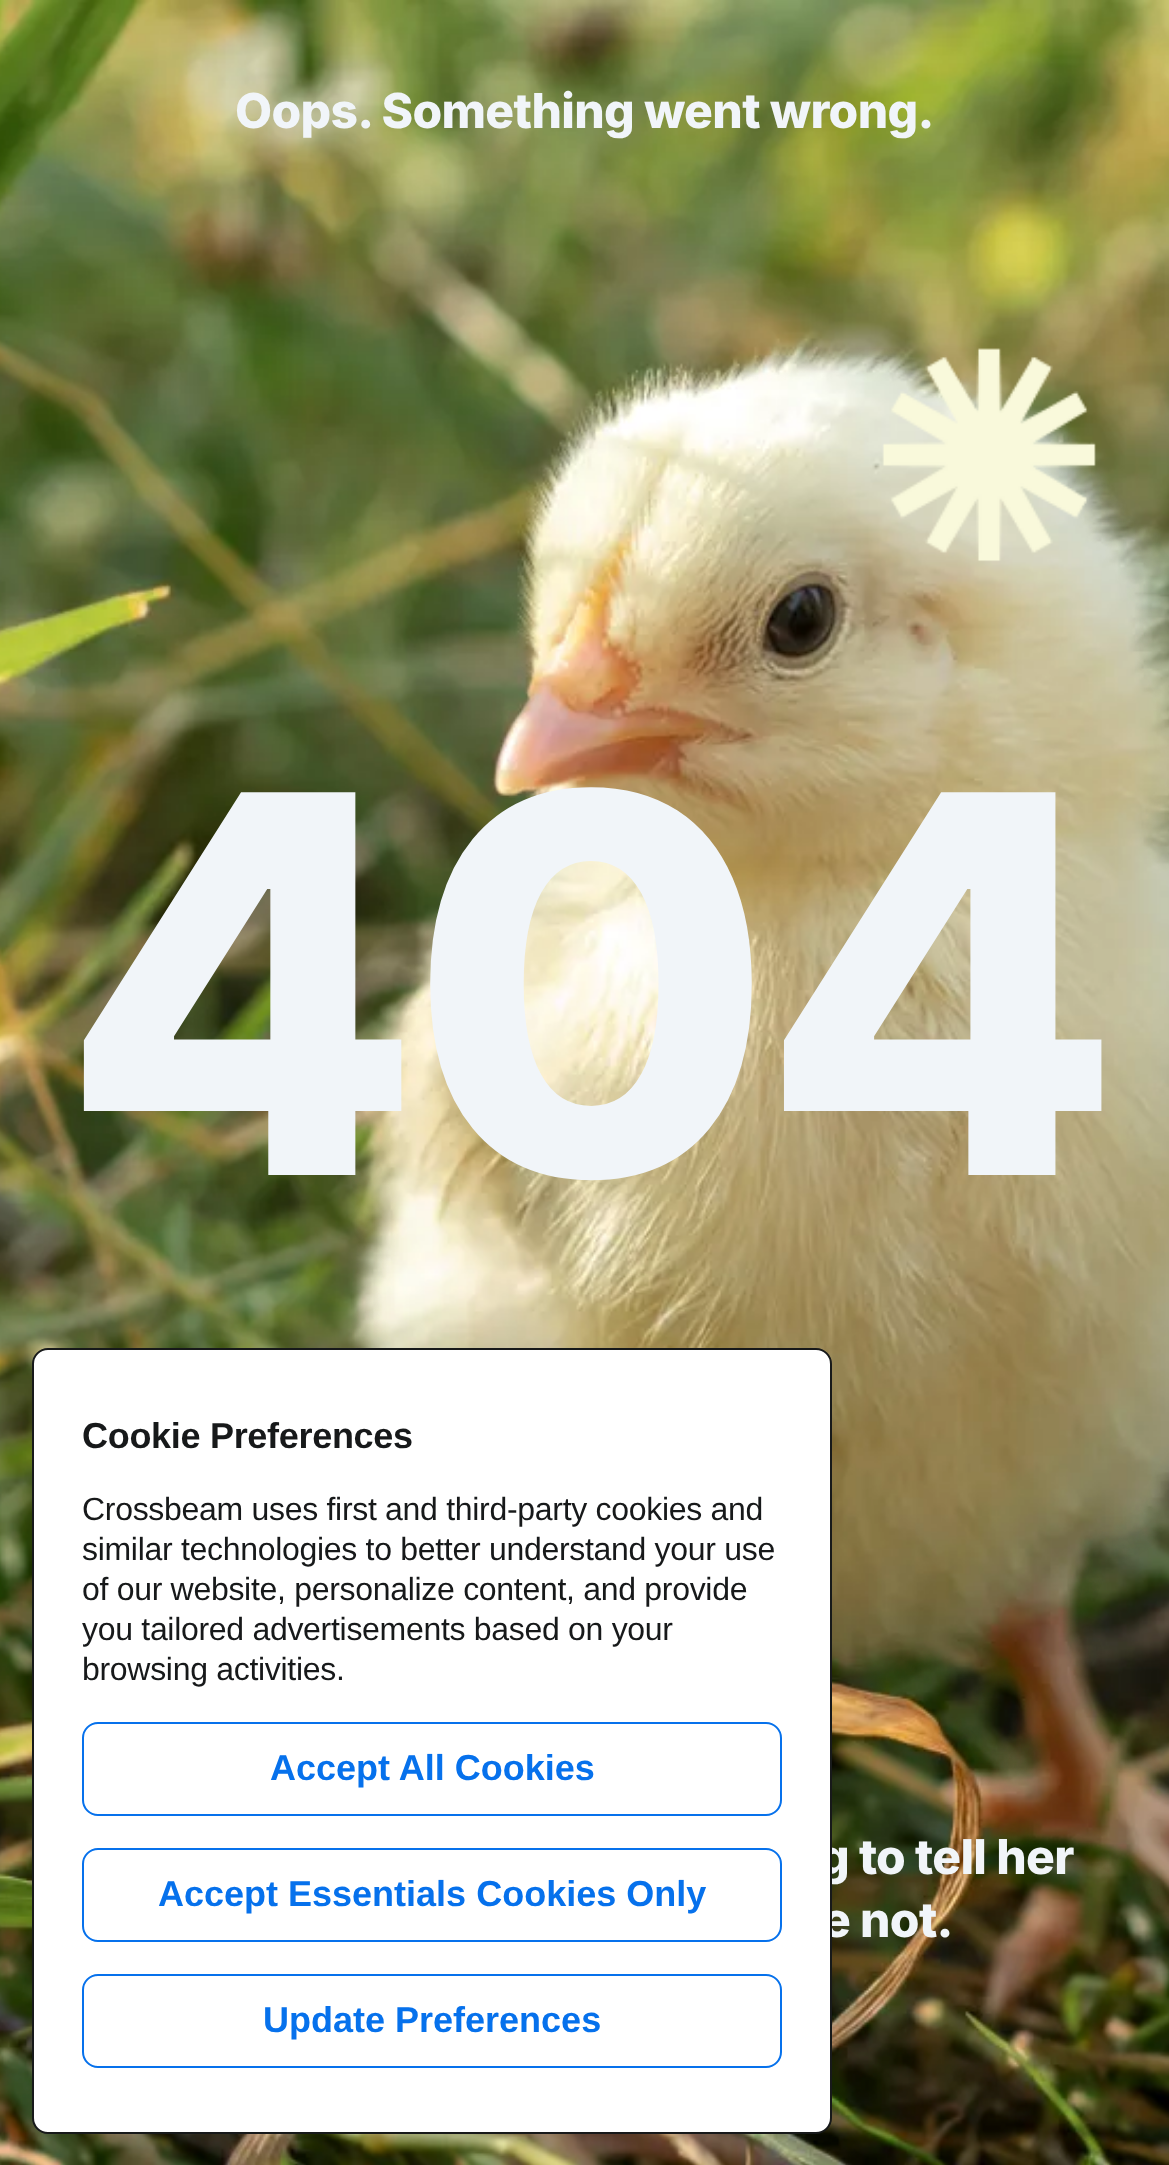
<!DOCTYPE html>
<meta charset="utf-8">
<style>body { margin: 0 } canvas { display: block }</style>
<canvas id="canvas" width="1169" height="2165"></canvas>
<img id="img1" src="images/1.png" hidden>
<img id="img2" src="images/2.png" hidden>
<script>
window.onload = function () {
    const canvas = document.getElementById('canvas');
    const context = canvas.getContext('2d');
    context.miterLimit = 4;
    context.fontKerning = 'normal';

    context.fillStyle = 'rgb(255, 255, 255)';
    context.fillRect(0, 0, 1169, 2165);
    context.drawImage(document.getElementById('img1'), 0, 0, 1169, 2165);
    context.drawImage(document.getElementById('img2'), 351, 348, 818, 1611);
    context.letterSpacing = '-0.65px';
    context.font = '800 48px Inter';
    context.fillStyle = 'rgb(241, 245, 249)';
    context.fillText('Oops. Something went wrong.', 235, 128);
    context.letterSpacing = '-13px';
    context.font = '800 526px Inter';
    context.fillText('404', 60, 1175);
    context.letterSpacing = '-0.65px';
    context.font = '800 48px Inter';
    context.fillText('g to tell her', 819, 1874);
    context.fillText('e not.', 822, 1937);
    context.fillStyle = 'rgb(255, 255, 255)';
    context.beginPath();
    context.roundRect(33, 1349, 798, 784, 15);
    context.fill();
    context.strokeStyle = 'rgb(23, 25, 26)';
    context.lineWidth = 2;
    context.stroke();
    context.letterSpacing = '-0.3px';
    context.font = 'bold 36px Liberation Sans';
    context.fillStyle = 'rgb(23, 25, 26)';
    context.fillText('Cookie Preferences', 82, 1448);
    context.font = '32px Liberation Sans';
    context.fillText('Crossbeam uses first and third-party cookies and', 82, 1520);
    context.fillText('similar technologies to better understand your use', 82, 1560);
    context.fillText('of our website, personalize content, and provide', 82, 1600);
    context.fillText('you tailored advertisements based on your', 82, 1640);
    context.fillText('browsing activities.', 82, 1680);
    context.beginPath();
    context.roundRect(83, 1723, 698, 92, 15);
    context.strokeStyle = 'rgb(6, 113, 236)';
    context.stroke();
    context.letterSpacing = '0px';
    context.font = 'bold 36px Liberation Sans';
    context.fillStyle = 'rgb(6, 113, 236)';
    context.fillText('Accept All Cookies', 270, 1780);
    context.beginPath();
    context.roundRect(83, 1849, 698, 92, 15);
    context.stroke();
    context.fillText('Accept Essentials Cookies Only', 158, 1906);
    context.beginPath();
    context.roundRect(83, 1975, 698, 92, 15);
    context.stroke();
    context.fillText('Update Preferences', 263, 2032);
};
</script>
